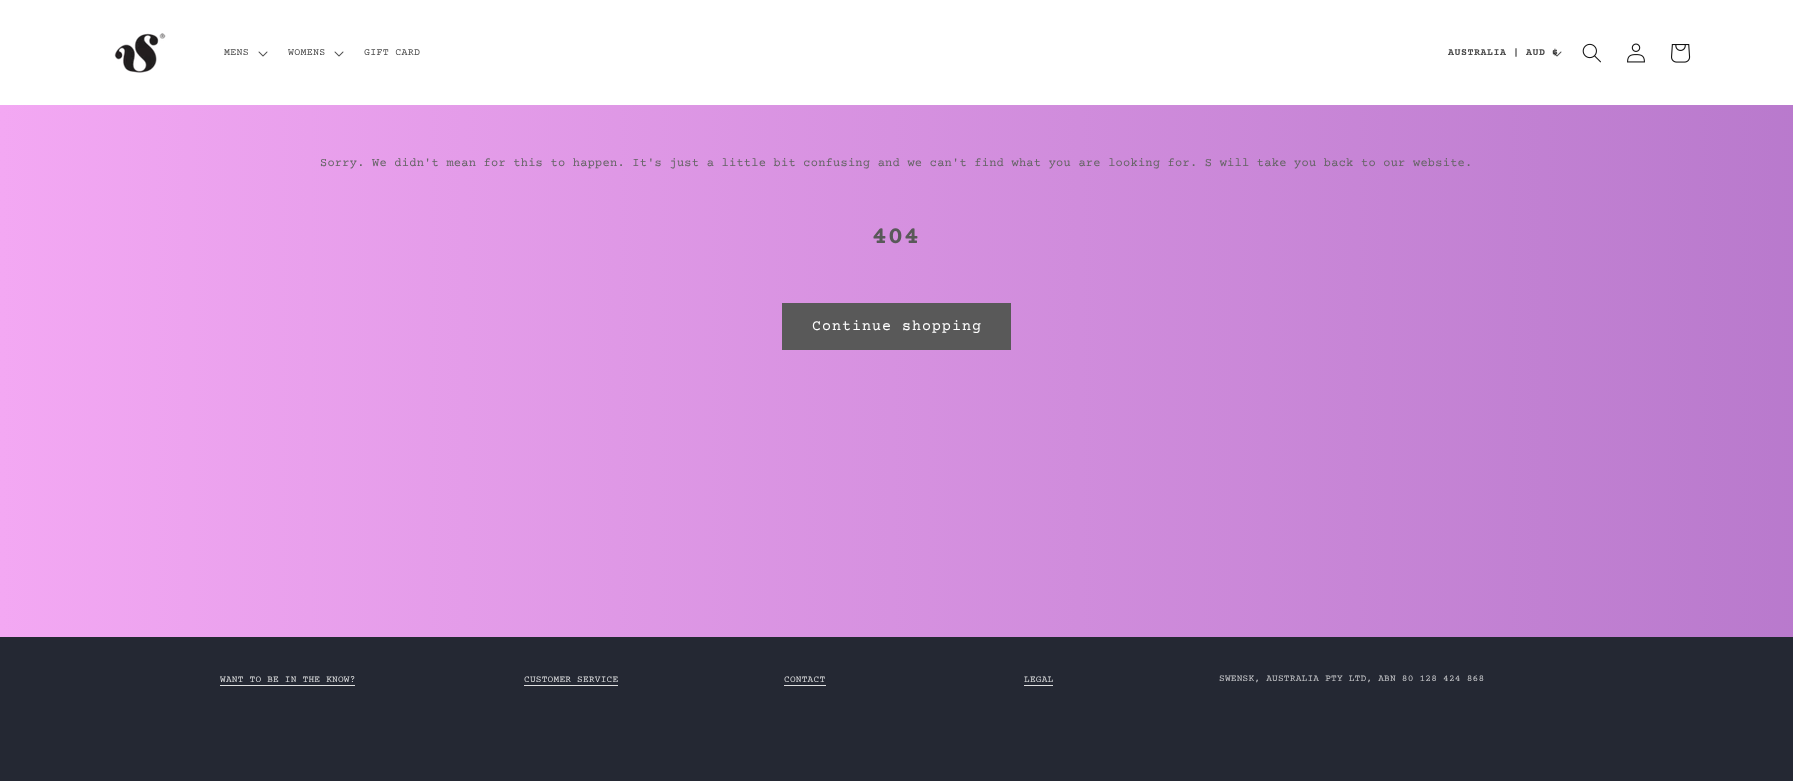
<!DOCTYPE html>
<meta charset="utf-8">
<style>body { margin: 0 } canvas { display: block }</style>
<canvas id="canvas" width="1793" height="781"></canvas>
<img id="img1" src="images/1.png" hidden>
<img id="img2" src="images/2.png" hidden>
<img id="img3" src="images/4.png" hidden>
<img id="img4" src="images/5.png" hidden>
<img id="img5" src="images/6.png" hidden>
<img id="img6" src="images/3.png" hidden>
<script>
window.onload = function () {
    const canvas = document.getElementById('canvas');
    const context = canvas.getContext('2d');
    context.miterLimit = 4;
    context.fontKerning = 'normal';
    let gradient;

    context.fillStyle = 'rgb(36, 40, 51)';
    context.fillRect(0, 0, 1793, 781);
    context.fillStyle = 'rgb(255, 255, 255)';
    context.fillRect(0, 0, 1793, 105);
    context.drawImage(document.getElementById('img1'), 114, 33, 52, 40);
    context.drawImage(document.getElementById('img2'), 258, 51, 10, 6);
    context.drawImage(document.getElementById('img2'), 334, 51, 10, 6);
    context.drawImage(document.getElementById('img3'), 1582, 43, 19, 20);
    context.drawImage(document.getElementById('img4'), 1627, 43, 18, 20);
    context.drawImage(document.getElementById('img5'), 1671, 44, 20, 19);
    gradient = context.createLinearGradient(0, 247, 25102, 246);
    gradient.addColorStop(0, 'rgb(243, 168, 243)');
    gradient.addColorStop(0.14, 'rgb(129, 77, 168)');
    gradient.addColorStop(0.29, 'rgb(77, 77, 255)');
    gradient.addColorStop(0.43, 'rgb(77, 166, 77)');
    gradient.addColorStop(0.57, 'rgb(255, 255, 77)');
    gradient.addColorStop(0.71, 'rgb(255, 192, 77)');
    gradient.addColorStop(0.86, 'rgb(255, 77, 77)');
    gradient.addColorStop(1, 'rgb(77, 77, 77)');
    context.fillStyle = gradient;
    context.fillRect(0, 105, 1793, 532);
    context.fillStyle = 'rgb(89, 89, 89)';
    context.fillRect(782, 303, 229, 47);
    context.fillStyle = 'rgb(222, 223, 224)';
    context.fillRect(220, 685, 135, 1);
    context.fillRect(524, 685, 94, 1);
    context.fillRect(784, 685, 42, 1);
    context.fillRect(1024, 685, 29, 1);
    context.letterSpacing = '0.25px';
    context.font = '10px Courier Prime';
    context.fillStyle = 'rgb(77, 77, 77)';
    context.fillText('MENS', 224, 55);
    context.fillText('WOMENS', 288, 55);
    context.fillText('GIFT CARD', 364, 55);
    context.letterSpacing = '0.5px';
    context.font = 'bold 10px Courier Prime';
    context.fillText('AUSTRALIA | AUD $', 1448, 55);
    context.drawImage(document.getElementById('img6'), 1552, 51, 10, 6);
    context.letterSpacing = '0.24px';
    context.font = '12px Courier Prime';
    context.fillStyle = 'rgb(100, 100, 100)';
    context.fillText('Sorry. We didn\'t mean for this to happen. It\'s just a little bit confusing and we can\'t find what you are looking for. S will take you back to our website.', 320, 166);
    context.letterSpacing = '1px';
    context.font = 'bold 25px Courier Prime';
    context.fillStyle = 'rgb(89, 89, 89)';
    context.fillText('404', 872, 243);
    context.font = '15px Courier Prime';
    context.fillStyle = 'rgb(255, 255, 255)';
    context.fillText('Continue shopping', 812, 330);
    context.letterSpacing = '0.2px';
    context.font = '9.5px Courier Prime';
    context.fillStyle = 'rgb(222, 223, 224)';
    context.fillText('WANT TO BE IN THE KNOW?', 220, 682);
    context.fillText('CUSTOMER SERVICE', 524, 682);
    context.fillText('CONTACT', 784, 682);
    context.fillText('LEGAL', 1024, 682);
    context.fillStyle = 'rgb(200, 201, 204)';
    context.fillText('SWENSK, AUSTRALIA PTY LTD, ABN 80 128 424 868', 1219, 681);
};
</script>
